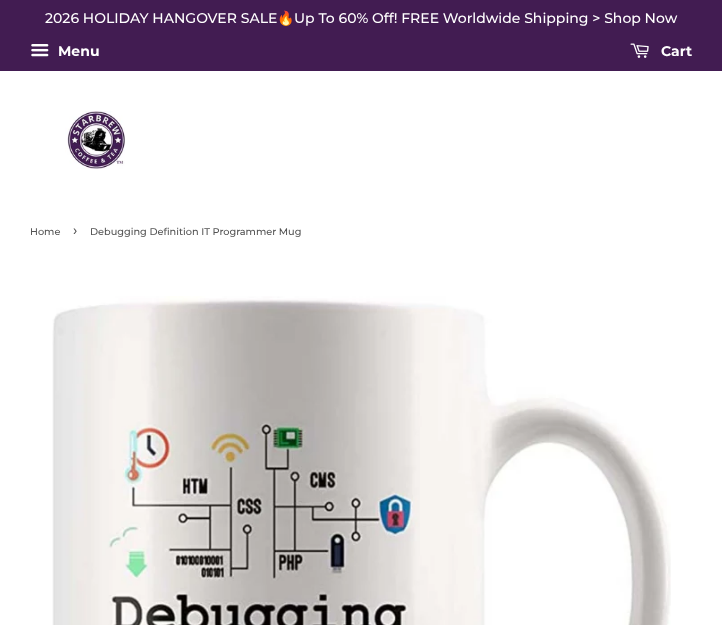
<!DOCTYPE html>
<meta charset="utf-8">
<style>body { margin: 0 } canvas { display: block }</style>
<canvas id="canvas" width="722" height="625"></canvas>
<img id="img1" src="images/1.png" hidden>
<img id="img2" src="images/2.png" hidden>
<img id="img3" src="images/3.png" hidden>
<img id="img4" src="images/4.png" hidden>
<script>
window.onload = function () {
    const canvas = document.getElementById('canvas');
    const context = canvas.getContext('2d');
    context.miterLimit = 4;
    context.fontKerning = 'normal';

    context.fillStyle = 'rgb(255, 255, 255)';
    context.fillRect(0, 0, 722, 625);
    context.fillStyle = 'rgb(66, 28, 82)';
    context.fillRect(0, 0, 722, 71);
    context.drawImage(document.getElementById('img1'), 31, 44, 18, 13);
    context.drawImage(document.getElementById('img2'), 630, 43, 19, 15);
    context.drawImage(document.getElementById('img3'), 65, 111, 60, 58);
    context.drawImage(document.getElementById('img4'), 52, 296, 619, 329);
    context.font = '500 14px Montserrat';
    context.fillStyle = 'rgb(255, 255, 255)';
    context.fillText('2026 HOLIDAY HANGOVER SALE', 45, 23);
    context.font = '14px Noto Color Emoji';
    context.fillText('🔥', 277, 23);
    context.font = '500 14px Montserrat';
    context.fillText('Up To 60% Off! FREE Worldwide Shipping > Shop Now', 294, 23);
    context.font = 'bold 14px Montserrat';
    context.fillText('Menu', 58, 56);
    context.fillText('Cart', 661, 56);
    context.font = '500 9.75px Montserrat';
    context.fillStyle = 'rgb(84, 84, 84)';
    context.fillText('Home', 30, 235);
    context.font = '500 14px Montserrat';
    context.fillText('›', 73, 235);
    context.font = '500 9.75px Montserrat';
    context.fillText('Debugging Definition IT Programmer Mug', 90, 235);
};
</script>
